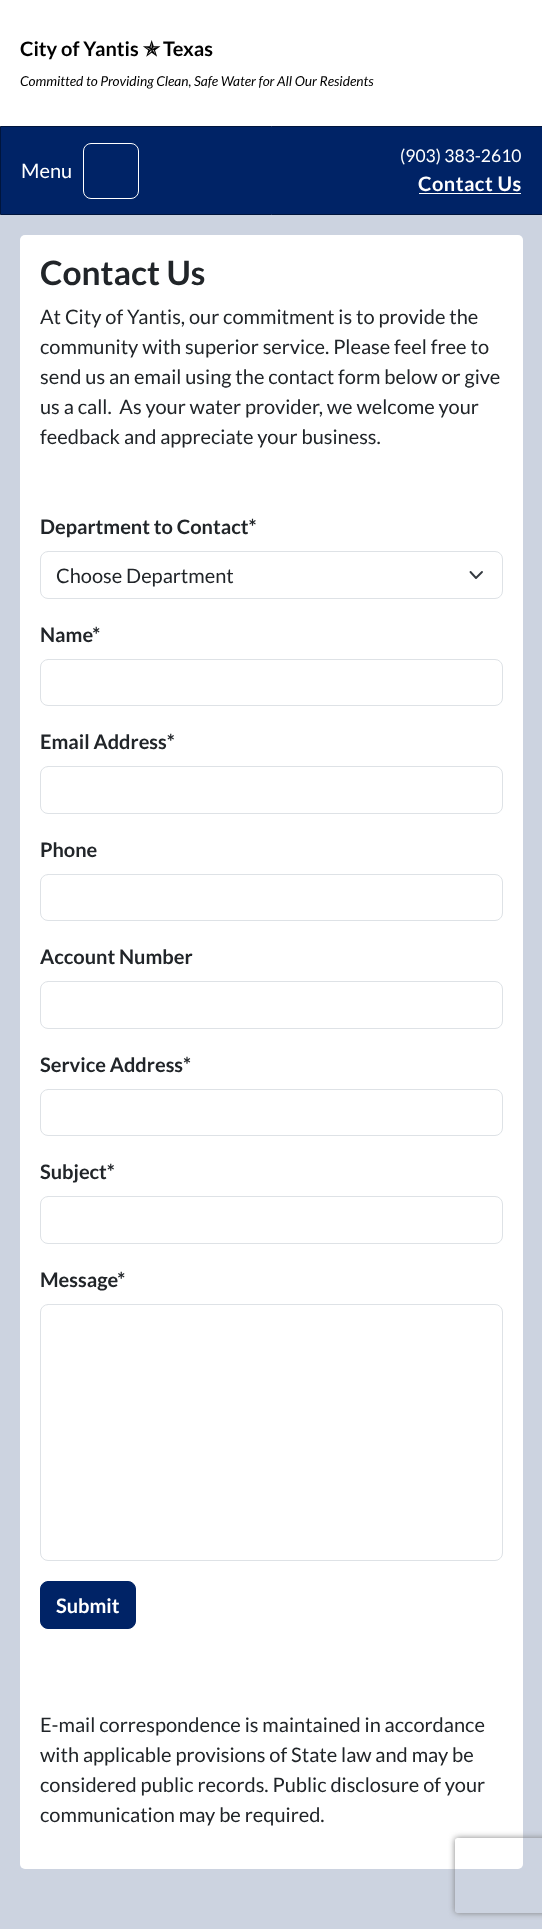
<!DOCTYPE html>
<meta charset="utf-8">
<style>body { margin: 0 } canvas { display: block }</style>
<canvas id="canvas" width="542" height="1929"></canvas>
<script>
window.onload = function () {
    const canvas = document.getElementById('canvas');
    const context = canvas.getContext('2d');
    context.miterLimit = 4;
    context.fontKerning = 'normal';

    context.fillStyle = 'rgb(204, 211, 224)';
    context.fillRect(0, 0, 542, 1929);
    context.fillStyle = 'rgb(255, 255, 255)';
    context.fillRect(0, 0, 542, 126);
    context.fillStyle = 'rgb(0, 35, 102)';
    context.beginPath();
    context.rect(0.5, 126.5, 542, 88);
    context.fill();
    context.strokeStyle = 'rgb(0, 21, 61)';
    context.stroke();
    context.beginPath();
    context.roundRect(83.5, 143.5, 55, 55, 7.5);
    context.strokeStyle = 'rgb(255, 255, 255)';
    context.stroke();
    context.fillStyle = 'rgb(255, 255, 255)';
    context.fillRect(419, 193, 102, 1);
    context.beginPath();
    context.roundRect(20, 235, 503, 1634, 5);
    context.fill();
    context.beginPath();
    context.moveTo(470.5, 572);
    context.lineTo(476, 578);
    context.lineTo(482, 572);
    context.strokeStyle = 'rgb(52, 58, 64)';
    context.lineWidth = 1.9;
    context.lineCap = 'round';
    context.lineJoin = 'round';
    context.stroke();
    context.beginPath();
    context.roundRect(40.5, 551.5, 462, 47, 7.5);
    context.strokeStyle = 'rgb(222, 226, 230)';
    context.lineWidth = 1;
    context.lineJoin = 'miter';
    context.stroke();
    context.beginPath();
    context.roundRect(40.5, 659.5, 462, 46, 7.5);
    context.stroke();
    context.beginPath();
    context.roundRect(40.5, 766.5, 462, 47, 7.5);
    context.stroke();
    context.beginPath();
    context.roundRect(40.5, 874.5, 462, 46, 7.5);
    context.stroke();
    context.beginPath();
    context.roundRect(40.5, 981.5, 462, 47, 7.5);
    context.stroke();
    context.beginPath();
    context.roundRect(40.5, 1089.5, 462, 46, 7.5);
    context.stroke();
    context.beginPath();
    context.roundRect(40.5, 1196.5, 462, 47, 7.5);
    context.stroke();
    context.beginPath();
    context.roundRect(40.5, 1304.5, 462, 256, 7.5);
    context.stroke();
    context.fillStyle = 'rgb(0, 35, 102)';
    context.beginPath();
    context.roundRect(40.5, 1581.5, 95, 47, 7.5);
    context.fill();
    context.strokeStyle = 'rgb(0, 35, 102)';
    context.stroke();
    context.save();
    context.beginPath();
    context.moveTo(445, 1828);
    context.lineTo(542, 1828);
    context.lineTo(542, 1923);
    context.lineTo(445, 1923);
    context.closePath();
    context.moveTo(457.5, 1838);
    context.lineTo(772.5, 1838);
    context.bezierCurveTo(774, 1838, 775, 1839, 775, 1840.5);
    context.lineTo(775, 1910.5);
    context.bezierCurveTo(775, 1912, 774, 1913, 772.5, 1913);
    context.lineTo(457.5, 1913);
    context.bezierCurveTo(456, 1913, 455, 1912, 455, 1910.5);
    context.lineTo(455, 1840.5);
    context.bezierCurveTo(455, 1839, 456, 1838, 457.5, 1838);
    context.closePath();
    context.clip('evenodd');
    context.fillStyle = 'rgb(128, 128, 128)';
    context.filter = 'blur(3px)';
    context.beginPath();
    context.roundRect(455, 1838, 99, 75, 2.5);
    context.fill();
    context.filter = 'none';
    context.restore();
    context.font = 'bold 20px Lato';
    context.fillStyle = 'rgb(0, 0, 0)';
    context.fillText('City of Yantis', 20, 56);
    context.font = 'bold 20px DejaVu Sans';
    context.fillText('✯', 143, 56);
    context.font = 'bold 20px Lato';
    context.fillText('Texas', 163, 56);
    context.font = 'italic 13.75px Lato';
    context.fillText('Committed to Providing Clean, Safe Water for All Our Residents', 20, 86);
    context.font = '20px Lato';
    context.fillStyle = 'rgb(255, 255, 255)';
    context.fillText('Menu', 21, 178);
    context.font = '17.5px Lato';
    context.fillText('(903) 383-2610', 400, 162);
    context.letterSpacing = '0.5px';
    context.font = 'bold 20px Lato';
    context.fillText('Contact Us', 418, 191);
    context.letterSpacing = '0px';
    context.font = 'bold 33.5px Lato';
    context.fillStyle = 'rgb(33, 37, 41)';
    context.fillText('Contact Us', 40, 285);
    context.font = '20px Lato';
    context.fillText('At City of Yantis, our commitment is to provide the', 40, 324);
    context.fillText('community with superior service. Please feel free to', 40, 354);
    context.fillText('send us an email using the contact form below or give', 40, 384);
    context.fillText('us a call.  As your water provider, we welcome your', 40, 414);
    context.fillText('feedback and appreciate your business.', 40, 444);
    context.font = 'bold 20px Lato';
    context.fillText('Department to Contact*', 40, 534);
    context.font = '20px Lato';
    context.fillText('Choose Department', 56, 583);
    context.font = 'bold 20px Lato';
    context.fillText('Name*', 40, 642);
    context.fillText('Email Address*', 40, 749);
    context.fillText('Phone', 40, 857);
    context.fillText('Account Number', 40, 964);
    context.fillText('Service Address*', 40, 1072);
    context.fillText('Subject*', 40, 1179);
    context.fillText('Message*', 40, 1287);
    context.fillStyle = 'rgb(255, 255, 255)';
    context.fillText('Submit', 56, 1613);
    context.font = '20px Lato';
    context.fillStyle = 'rgb(33, 37, 41)';
    context.fillText('E-mail correspondence is maintained in accordance', 40, 1732);
    context.fillText('with applicable provisions of State law and may be', 40, 1762);
    context.fillText('considered public records. Public disclosure of your', 40, 1792);
    context.fillText('communication may be required.', 40, 1822);
};
</script>
